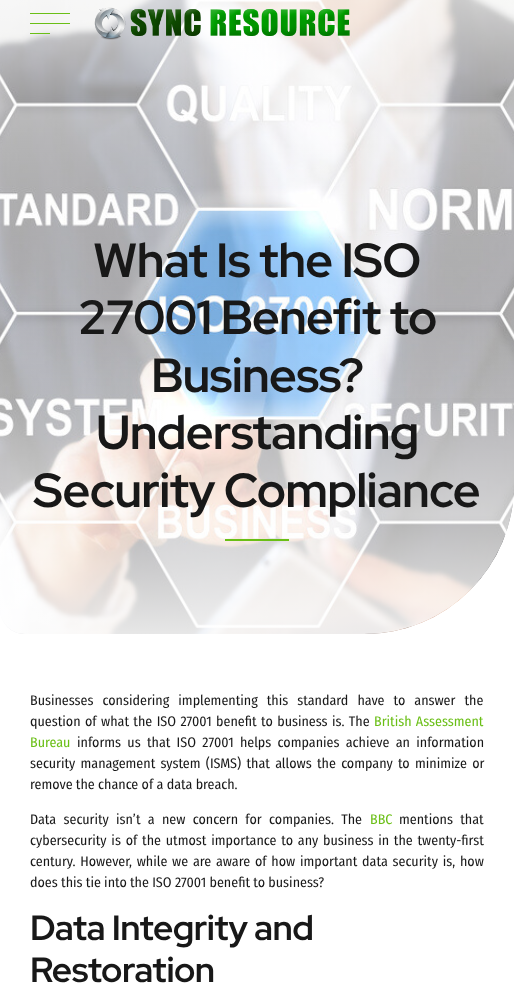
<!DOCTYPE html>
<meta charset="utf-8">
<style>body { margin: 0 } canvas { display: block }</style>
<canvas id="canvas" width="514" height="991"></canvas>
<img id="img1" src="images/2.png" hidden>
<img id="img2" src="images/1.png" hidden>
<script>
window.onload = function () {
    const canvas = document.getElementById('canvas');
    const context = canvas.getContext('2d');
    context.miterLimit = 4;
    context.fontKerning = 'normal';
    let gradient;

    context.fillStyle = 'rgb(255, 255, 255)';
    context.fillRect(0, 0, 514, 991);
    context.drawImage(document.getElementById('img1'), 0, 0, 514, 634);
    gradient = context.createLinearGradient(257, 635, 257, -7);
    gradient.addColorStop(0, 'rgba(255, 255, 255, 0.9)');
    gradient.addColorStop(0.8, 'rgba(255, 255, 255, 0)');
    context.fillStyle = gradient;
    context.beginPath();
    context.moveTo(0, -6);
    context.lineTo(514, -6);
    context.lineTo(514, 484);
    context.bezierCurveTo(514, 567, 447, 634, 364, 634);
    context.lineTo(25, 634);
    context.bezierCurveTo(11, 634, 0, 623, 0, 609);
    context.closePath();
    context.fill();
    gradient = context.createLinearGradient(257, -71, 257, 635);
    gradient.addColorStop(0, 'rgba(255, 255, 255, 0.9)');
    gradient.addColorStop(0.68, 'rgba(255, 255, 255, 0)');
    context.fillStyle = gradient;
    context.fillRect(0, 0, 514, 398);
    context.fillStyle = 'rgb(106, 191, 22)';
    context.fillRect(30, 13, 40, 1);
    context.fillRect(30, 23, 40, 1);
    context.fillRect(30, 33, 20, 1);
    context.drawImage(document.getElementById('img2'), 94, 7, 256, 33);
    context.fillRect(225, 539, 64, 2);
    context.letterSpacing = '-0.75px';
    context.font = 'bold 48px Red Hat Display';
    context.fillStyle = 'rgb(24, 24, 24)';
    context.fillText('What Is the ISO', 93, 277);
    context.fillText('27001 Benefit to', 78, 334);
    context.fillText('Business?', 151, 392);
    context.fillText('Understanding', 96, 449);
    context.fillText('Security Compliance', 33, 507);
    context.letterSpacing = '0px';
    context.wordSpacing = '5.75px';
    context.font = '14px Fira Sans Condensed';
    context.fillText('Businesses considering implementing this standard have to answer the', 30, 705);
    context.wordSpacing = '1.1px';
    context.fillText('question of what the ISO 27001 benefit to business is. The', 30, 726);
    context.wordSpacing = '1px';
    context.fillStyle = 'rgb(106, 191, 22)';
    context.fillText('British Assessment', 374, 726);
    context.wordSpacing = '0px';
    context.fillText('Bureau', 30, 747);
    context.wordSpacing = '3px';
    context.fillStyle = 'rgb(24, 24, 24)';
    context.fillText('informs us that ISO 27001 helps companies achieve an information', 77, 747);
    context.wordSpacing = '2px';
    context.fillText('security management system (ISMS) that allows the company to minimize or', 30, 768);
    context.wordSpacing = '0px';
    context.fillText('remove the chance of a data breach.', 30, 789);
    context.wordSpacing = '4px';
    context.fillText('Data security isn’t a new concern for companies. The', 30, 824);
    context.wordSpacing = '0px';
    context.fillStyle = 'rgb(106, 191, 22)';
    context.fillText('BBC', 370, 824);
    context.wordSpacing = '4px';
    context.fillStyle = 'rgb(24, 24, 24)';
    context.fillText('mentions that', 399, 824);
    context.wordSpacing = '1.5px';
    context.fillText('cybersecurity is of the utmost importance to any business in the twenty-first', 30, 845);
    context.fillText('century. However, while we are aware of how important data security is, how', 30, 866);
    context.wordSpacing = '0px';
    context.fillText('does this tie into the ISO 27001 benefit to business?', 30, 887);
    context.letterSpacing = '-0.5px';
    context.font = 'bold 35px Red Hat Display';
    context.fillText('Data Integrity and', 30, 940);
    context.fillText('Restoration', 30, 982);
};
</script>
